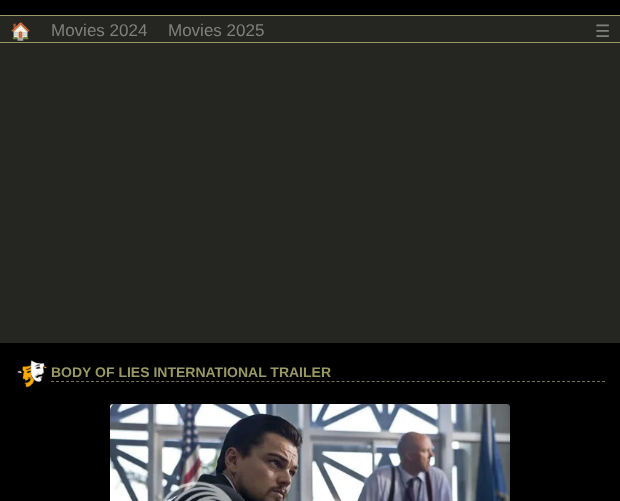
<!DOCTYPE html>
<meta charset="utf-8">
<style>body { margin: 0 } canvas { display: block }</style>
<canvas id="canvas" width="620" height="501"></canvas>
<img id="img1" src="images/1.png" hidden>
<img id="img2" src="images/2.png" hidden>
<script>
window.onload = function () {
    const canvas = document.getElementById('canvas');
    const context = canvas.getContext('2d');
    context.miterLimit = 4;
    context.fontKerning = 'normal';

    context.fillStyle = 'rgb(37, 38, 34)';
    context.fillRect(0, 0, 620, 501);
    context.fillStyle = 'rgb(0, 0, 0)';
    context.fillRect(0, 0, 620, 15);
    context.fillStyle = 'rgb(153, 153, 102)';
    context.fillRect(0, 15, 620, 1);
    context.fillRect(0, 42, 620, 1);
    context.fillStyle = 'rgb(0, 0, 0)';
    context.fillRect(0, 343, 620, 158);
    context.drawImage(document.getElementById('img1'), 17, 360, 30, 28);
    context.beginPath();
    context.moveTo(51, 381.5);
    context.lineTo(605, 381.5);
    context.strokeStyle = 'rgb(118, 113, 84)';
    context.setLineDash([3, 2.01]);
    context.stroke();
    context.drawImage(document.getElementById('img2'), 110, 404, 400, 97);
    context.font = '17px Noto Color Emoji';
    context.fillStyle = 'rgb(128, 128, 128)';
    context.fillText('🏠', 10, 37);
    context.font = '17px Liberation Sans';
    context.fillText('Movies 2024', 51, 36);
    context.fillText('Movies 2025', 168, 36);
    context.font = '17px DejaVu Sans';
    context.fillText('☰', 595, 37);
    context.font = 'bold 14px Liberation Sans';
    context.fillStyle = 'rgb(153, 153, 102)';
    context.fillText('BODY OF LIES INTERNATIONAL TRAILER', 51, 377);
};
</script>
